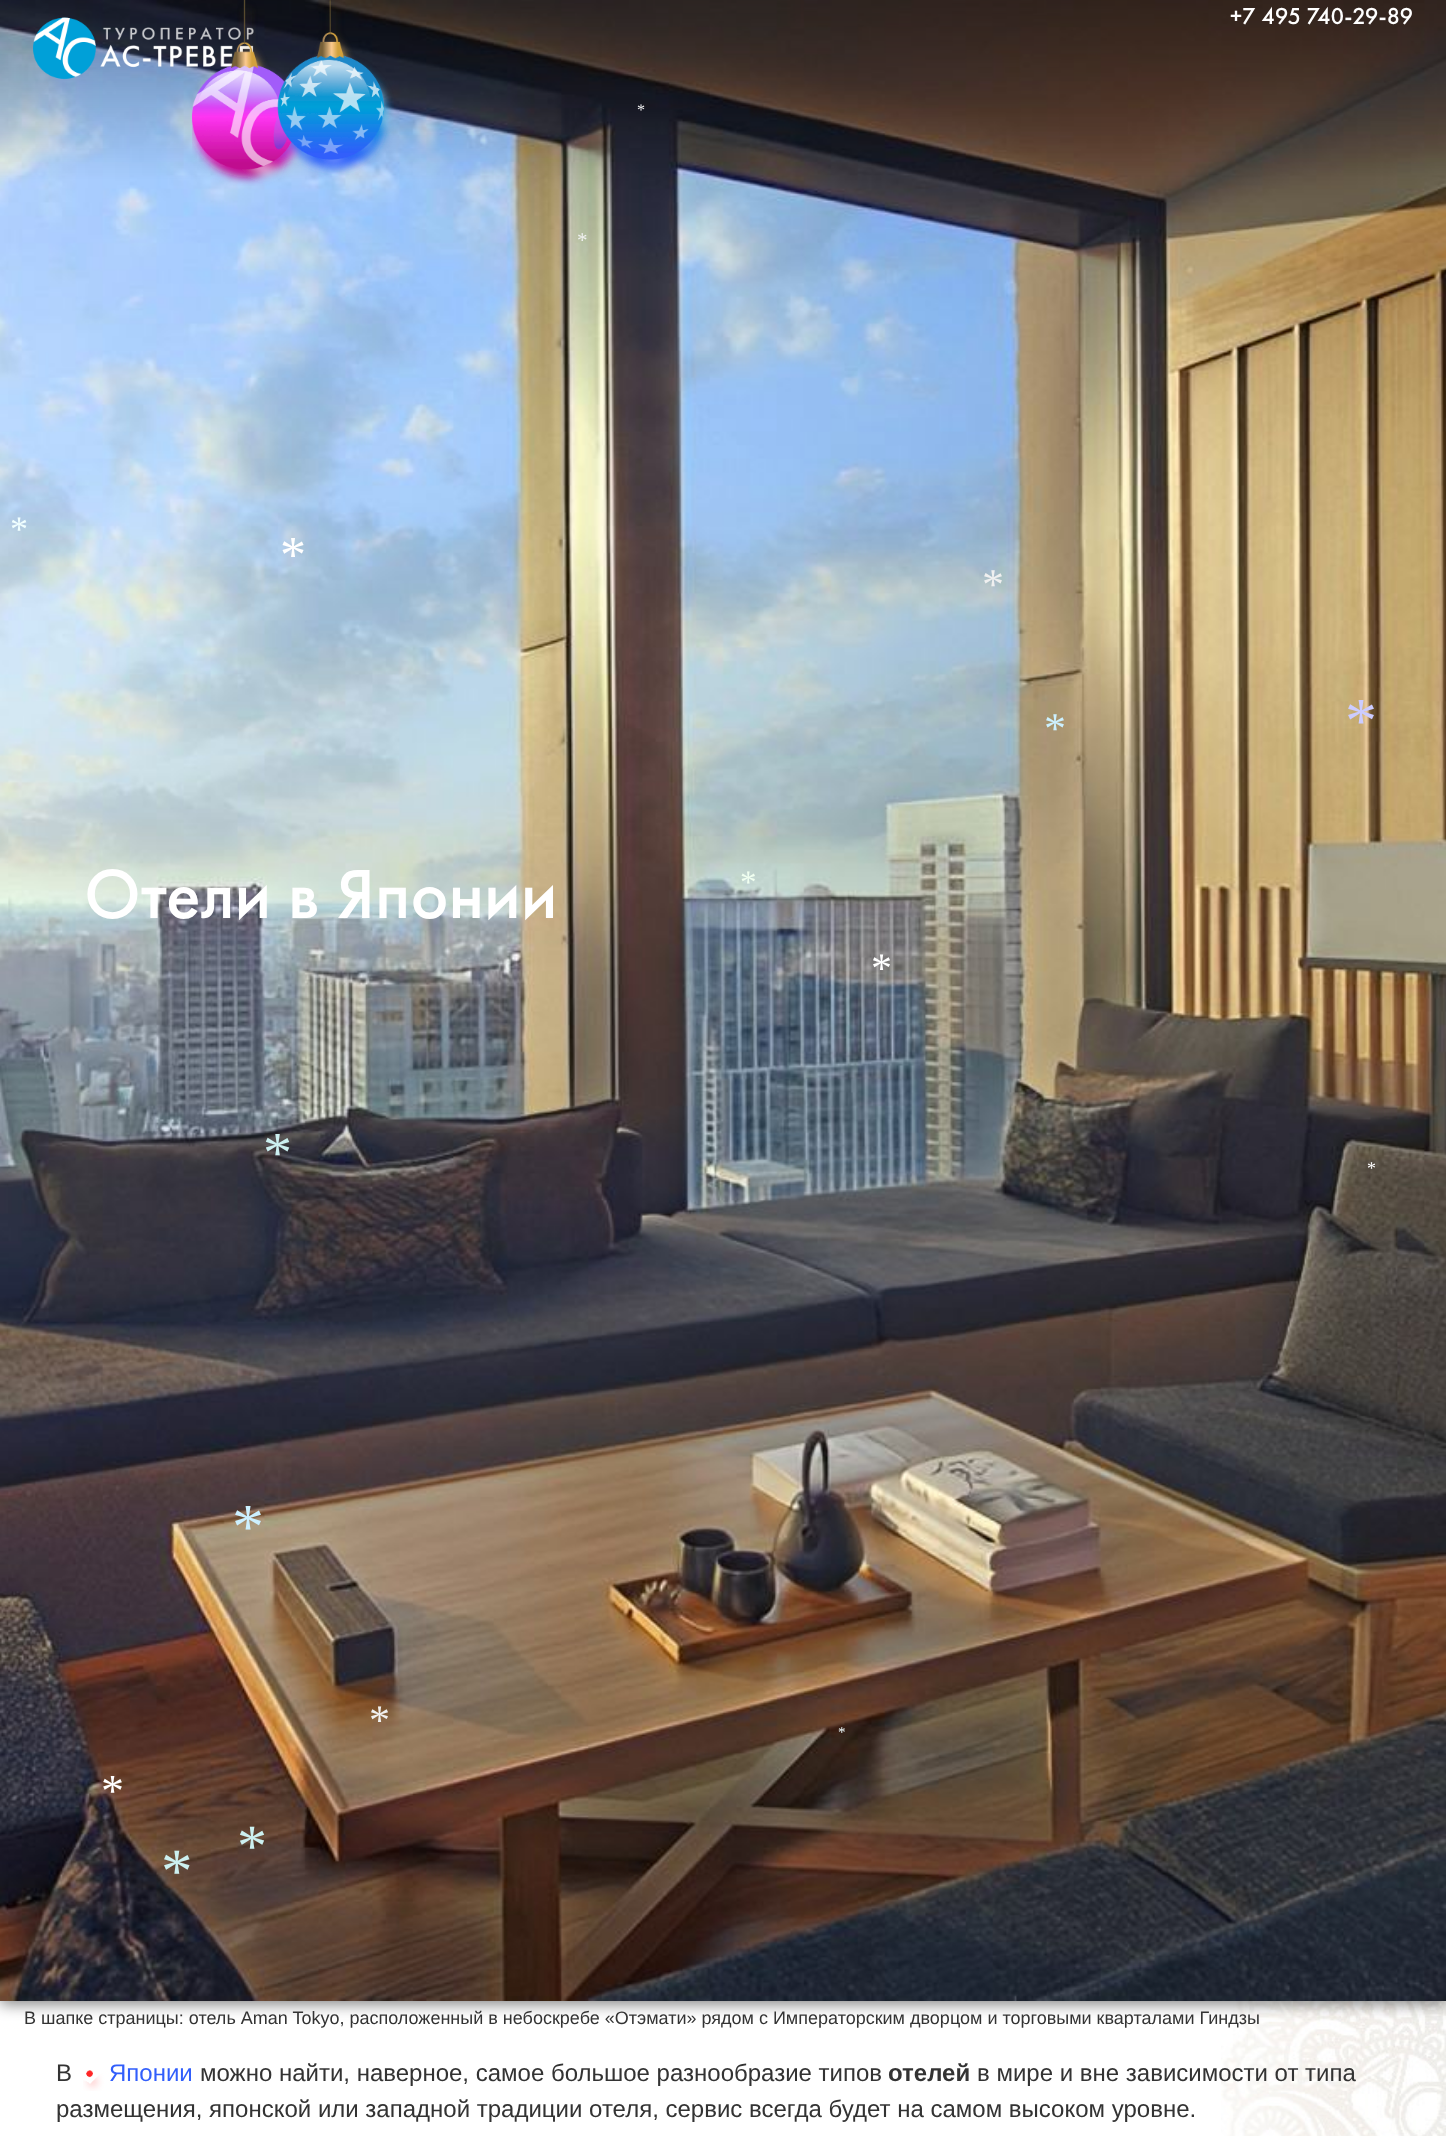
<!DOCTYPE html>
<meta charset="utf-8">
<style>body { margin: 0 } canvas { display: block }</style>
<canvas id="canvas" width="1446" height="2136"></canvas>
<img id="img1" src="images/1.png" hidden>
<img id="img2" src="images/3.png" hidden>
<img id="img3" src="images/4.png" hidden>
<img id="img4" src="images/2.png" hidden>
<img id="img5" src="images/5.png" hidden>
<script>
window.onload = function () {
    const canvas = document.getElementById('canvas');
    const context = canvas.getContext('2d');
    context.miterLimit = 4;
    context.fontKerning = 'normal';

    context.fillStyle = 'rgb(255, 255, 255)';
    context.fillRect(0, 0, 1446, 2136);
    context.drawImage(document.getElementById('img1'), 1221, 2001, 225, 135);
    context.fillStyle = 'rgba(0, 0, 0, 0.5)';
    context.filter = 'blur(7.5px)';
    context.beginPath();
    context.rect(0, 3, 1446, 2001);
    context.fill();
    context.filter = 'none';
    context.drawImage(document.getElementById('img2'), 0, 0, 1446, 2001);
    context.drawImage(document.getElementById('img3'), 33, 17, 221, 63);
    context.drawImage(document.getElementById('img4'), 192, 0, 202, 186);
    context.font = '500 24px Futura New';
    context.fillStyle = 'rgb(255, 255, 255)';
    context.fillText('+7 495 740-29-89', 1230, 24);
    context.font = '500 72px Futura New';
    context.fillText('Отели в Японии', 84, 918);
    context.font = '16px Liberation Serif';
    context.fillStyle = 'rgb(240, 240, 240)';
    context.fillText('*', 637, 115);
    context.font = '21px Liberation Serif';
    context.fillText('*', 577, 247);
    context.font = '36px Liberation Serif';
    context.fillStyle = 'rgb(240, 255, 255)';
    context.fillText('*', 10, 541);
    context.font = '52px Liberation Serif';
    context.fillStyle = 'rgb(255, 255, 255)';
    context.fillText('*', 280, 572);
    context.font = '44px Liberation Serif';
    context.fillStyle = 'rgb(240, 240, 240)';
    context.fillText('*', 982, 599);
    context.fillStyle = 'rgb(204, 240, 255)';
    context.fillText('*', 1044, 743);
    context.font = '64px Liberation Serif';
    context.fillStyle = 'rgb(204, 204, 255)';
    context.fillText('*', 1345, 742);
    context.font = '33px Liberation Serif';
    context.fillStyle = 'rgb(240, 255, 240)';
    context.fillText('*', 740, 893);
    context.font = '42px Liberation Serif';
    context.fillStyle = 'rgb(255, 255, 255)';
    context.fillText('*', 871, 982);
    context.font = '58px Liberation Serif';
    context.fillStyle = 'rgb(204, 240, 240)';
    context.fillText('*', 263, 1172);
    context.font = '18px Liberation Serif';
    context.fillStyle = 'rgb(255, 255, 255)';
    context.fillText('*', 1367, 1174);
    context.font = '64px Liberation Serif';
    context.fillStyle = 'rgb(204, 240, 255)';
    context.fillText('*', 232, 1548);
    context.font = '42px Liberation Serif';
    context.fillStyle = 'rgb(240, 240, 240)';
    context.fillText('*', 369, 1734);
    context.font = '15px Liberation Serif';
    context.fillStyle = 'rgb(240, 255, 255)';
    context.fillText('*', 838, 1737);
    context.font = '46px Liberation Serif';
    context.fillStyle = 'rgb(255, 255, 255)';
    context.fillText('*', 101, 1806);
    context.font = '60px Liberation Serif';
    context.fillStyle = 'rgb(204, 240, 240)';
    context.fillText('*', 237, 1866);
    context.font = '63px Liberation Serif';
    context.fillText('*', 161, 1892);
    context.font = '18px Liberation Sans';
    context.fillStyle = 'rgb(51, 51, 51)';
    context.fillText('В шапке страницы: отель Aman Tokyo, расположенный в небоскребе «Отэмати» рядом с Императорским дворцом и торговыми кварталами Гиндзы', 24, 2024);
    context.font = '24px Liberation Sans';
    context.fillText('В', 56, 2081);
    context.fillStyle = 'rgb(49, 94, 251)';
    context.fillText('Японии', 109, 2081);
    context.drawImage(document.getElementById('img5'), 83, 2070, 28, 21);
    context.fillStyle = 'rgb(51, 51, 51)';
    context.fillText('можно найти, наверное, самое большое разнообразие типов', 200, 2081);
    context.font = 'bold 24px Liberation Sans';
    context.fillText('отелей', 888, 2081);
    context.font = '24px Liberation Sans';
    context.fillText('в мире и вне зависимости от типа', 977, 2081);
    context.fillText('размещения, японской или западной традиции отеля, сервис всегда будет на самом высоком уровне.', 56, 2117);
};
</script>
